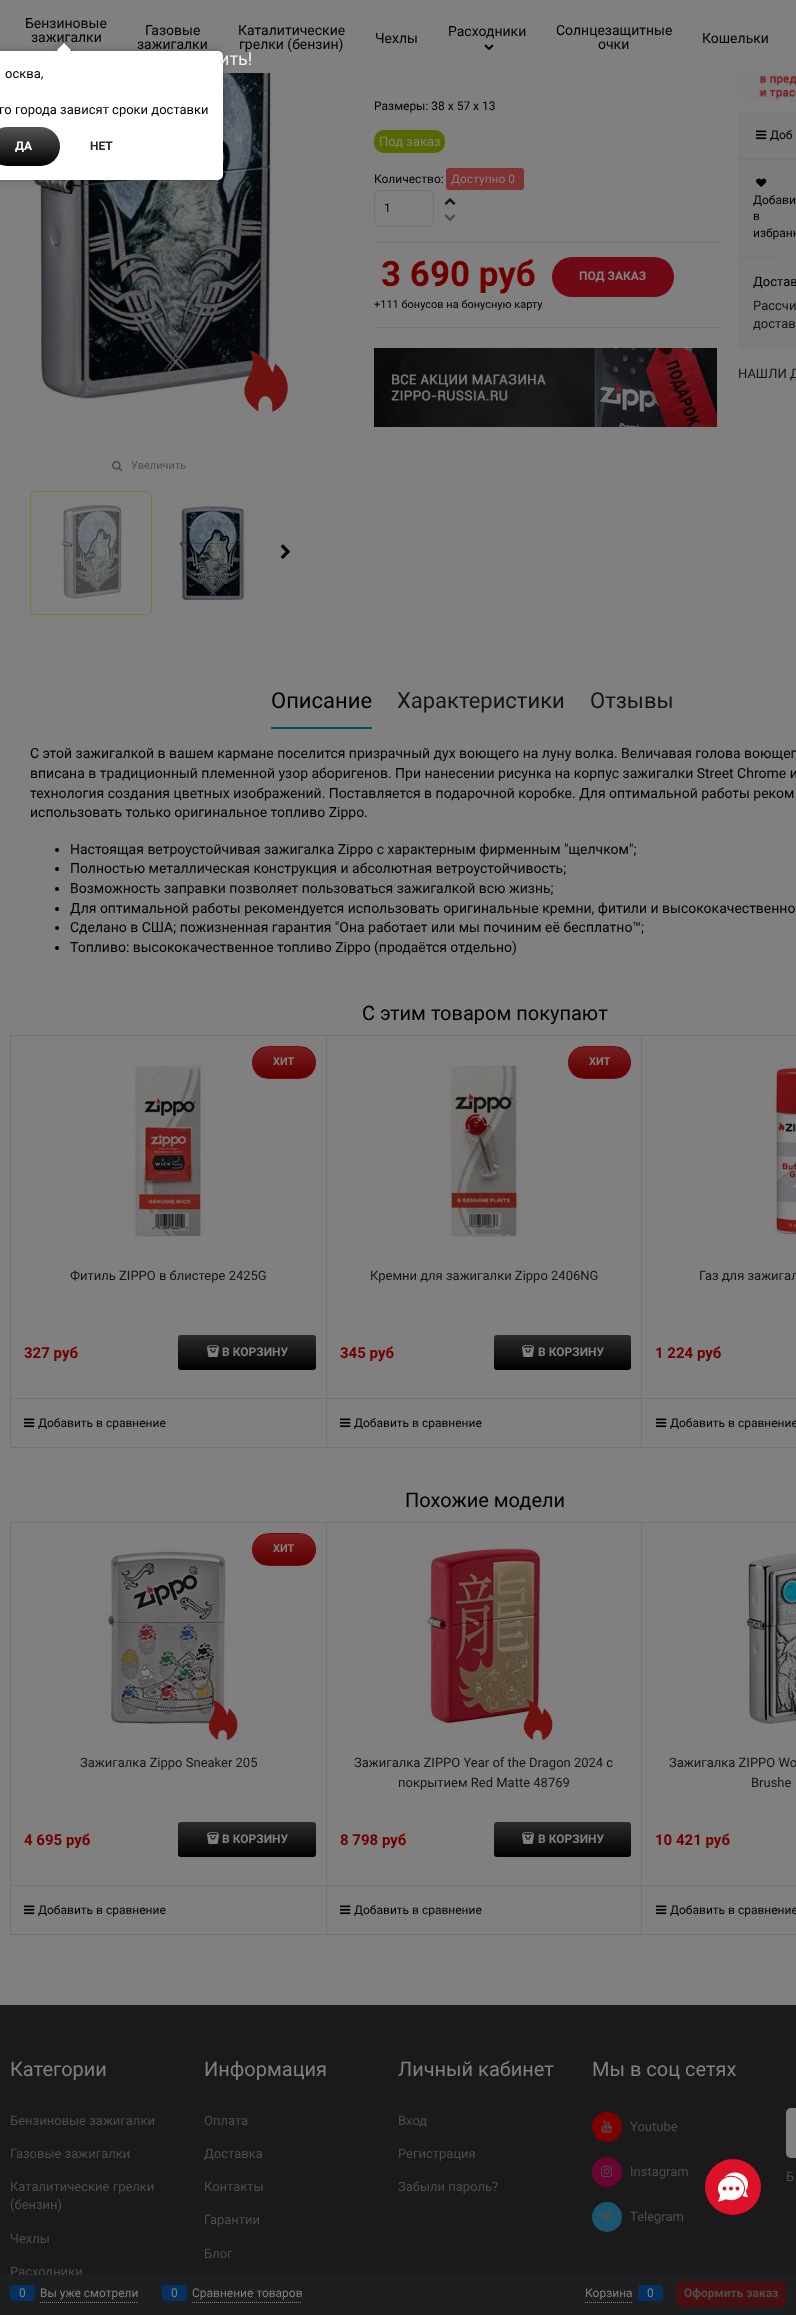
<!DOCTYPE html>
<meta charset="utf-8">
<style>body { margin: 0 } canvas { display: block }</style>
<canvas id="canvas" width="796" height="2315"></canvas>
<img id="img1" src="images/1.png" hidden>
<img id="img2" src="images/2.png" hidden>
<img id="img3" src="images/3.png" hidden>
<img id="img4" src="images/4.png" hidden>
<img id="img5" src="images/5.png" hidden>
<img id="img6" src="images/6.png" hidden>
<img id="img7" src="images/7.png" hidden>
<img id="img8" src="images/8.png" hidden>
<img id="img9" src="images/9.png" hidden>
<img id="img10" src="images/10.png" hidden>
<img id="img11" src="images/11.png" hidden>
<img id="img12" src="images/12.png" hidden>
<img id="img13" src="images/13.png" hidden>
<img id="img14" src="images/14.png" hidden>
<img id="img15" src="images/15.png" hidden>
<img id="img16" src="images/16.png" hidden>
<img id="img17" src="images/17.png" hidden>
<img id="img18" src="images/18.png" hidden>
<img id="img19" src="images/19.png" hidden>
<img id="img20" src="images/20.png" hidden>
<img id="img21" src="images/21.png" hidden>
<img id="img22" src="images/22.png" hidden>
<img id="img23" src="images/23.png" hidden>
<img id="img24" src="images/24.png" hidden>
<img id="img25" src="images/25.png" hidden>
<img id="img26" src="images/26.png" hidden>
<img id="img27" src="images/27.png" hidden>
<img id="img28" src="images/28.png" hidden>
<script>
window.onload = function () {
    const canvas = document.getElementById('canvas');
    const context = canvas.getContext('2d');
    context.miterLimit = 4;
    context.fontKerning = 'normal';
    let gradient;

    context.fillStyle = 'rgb(128, 128, 128)';
    context.fillRect(0, 0, 796, 2315);
    context.drawImage(document.getElementById('img1'), 70, 50, 2, 1);
    context.drawImage(document.getElementById('img2'), 484, 44, 10, 7);
    context.fillStyle = 'rgb(89, 103, 2)';
    context.beginPath();
    context.roundRect(374, 130, 71, 23, 10);
    context.fill();
    context.fillStyle = 'rgb(126, 50, 50)';
    context.beginPath();
    context.roundRect(446, 168, 78, 22, 3);
    context.fill();
    context.beginPath();
    context.roundRect(374.5, 190.5, 59, 36, 4.5);
    context.strokeStyle = 'rgb(113, 114, 114)';
    context.stroke();
    context.drawImage(document.getElementById('img3'), 444, 198, 12, 7);
    context.drawImage(document.getElementById('img4'), 444, 214, 12, 8);
    context.fillStyle = 'rgb(113, 114, 114)';
    context.fillRect(374, 242, 344, 1);
    context.fillRect(374, 327, 344, 1);
    context.fillStyle = 'rgb(111, 9, 21)';
    context.beginPath();
    context.roundRect(552, 257, 122, 40, 20);
    context.fill();
    context.drawImage(document.getElementById('img5'), 374, 348, 343, 79);
    context.drawImage(document.getElementById('img6'), 31, 73, 241, 327);
    context.drawImage(document.getElementById('img7'), 244, 350, 44, 62);
    context.drawImage(document.getElementById('img8'), 112, 460, 11, 12);
    context.beginPath();
    context.roundRect(30.5, 491.5, 121, 123, 4.5);
    context.strokeStyle = 'rgb(124, 118, 66)';
    context.stroke();
    context.drawImage(document.getElementById('img9'), 57, 505, 65, 94);
    context.drawImage(document.getElementById('img10'), 178, 503, 70, 100);
    context.drawImage(document.getElementById('img11'), 280, 544, 10, 15);
    context.drawImage(document.getElementById('img12'), 738, 73, 58, 28);
    context.fillStyle = 'rgb(124, 124, 124)';
    context.beginPath();
    context.roundRect(738, 111, 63, 237, 5);
    context.fill();
    context.fillStyle = 'rgb(117, 117, 117)';
    context.fillRect(738, 159, 58, 1);
    context.drawImage(document.getElementById('img13'), 756, 130, 11, 10);
    context.fillRect(738, 257, 44, 1);
    context.drawImage(document.getElementById('img14'), 756, 178, 11, 9);
    context.fillStyle = 'rgb(0, 82, 102)';
    context.fillRect(271, 727, 101, 2);
    context.fillStyle = 'rgb(0, 0, 0)';
    context.beginPath();
    context.arc(57, 850, 2, 0, 2 * Math.PI);
    context.fill();
    context.beginPath();
    context.arc(57, 869, 2, 0, 2 * Math.PI);
    context.fill();
    context.beginPath();
    context.arc(57, 889, 2, 0, 2 * Math.PI);
    context.fill();
    context.beginPath();
    context.arc(57, 909, 2, 0, 2 * Math.PI);
    context.fill();
    context.beginPath();
    context.arc(57, 928, 2, 0, 2 * Math.PI);
    context.fill();
    context.beginPath();
    context.arc(57, 948, 2, 0, 2 * Math.PI);
    context.fill();
    context.strokeStyle = 'rgb(113, 114, 114)';
    context.strokeRect(10.5, 1035.5, 316, 412);
    context.drawImage(document.getElementById('img15'), 131, 1061, 74, 176);
    context.save();
    context.beginPath();
    context.roundRect(252, 1046, 64, 33, 16.5);
    context.clip();
    gradient = context.createLinearGradient(284, 1047, 284, 1078);
    gradient.addColorStop(0, 'rgb(120, 30, 30)');
    gradient.addColorStop(1, 'rgb(92, 0, 0)');
    context.fillStyle = gradient;
    context.fillRect(252, 1047, 64, 31);
    context.restore();
    context.beginPath();
    context.roundRect(252.5, 1046.5, 63, 32, 16);
    context.strokeStyle = 'rgb(111, 9, 21)';
    context.stroke();
    gradient = context.createLinearGradient(247, 1335, 247, 1370);
    gradient.addColorStop(0, 'rgb(43, 43, 43)');
    gradient.addColorStop(1, 'rgb(0, 0, 0)');
    context.fillStyle = gradient;
    context.beginPath();
    context.roundRect(178, 1335, 138, 35, 3);
    context.fill();
    context.drawImage(document.getElementById('img16'), 207, 1345, 12, 12);
    context.fillStyle = 'rgb(113, 114, 114)';
    context.fillRect(11, 1398, 315, 1);
    context.drawImage(document.getElementById('img17'), 24, 1418, 11, 10);
    context.strokeStyle = 'rgb(113, 114, 114)';
    context.strokeRect(326.5, 1035.5, 315, 412);
    context.drawImage(document.getElementById('img18'), 442, 1061, 80, 176);
    context.save();
    context.beginPath();
    context.roundRect(568, 1046, 63, 33, 16.5);
    context.clip();
    gradient = context.createLinearGradient(600, 1047, 600, 1078);
    gradient.addColorStop(0, 'rgb(120, 30, 30)');
    gradient.addColorStop(1, 'rgb(92, 0, 0)');
    context.fillStyle = gradient;
    context.fillRect(568, 1047, 63, 31);
    context.restore();
    context.beginPath();
    context.roundRect(568.5, 1046.5, 62, 32, 16);
    context.strokeStyle = 'rgb(111, 9, 21)';
    context.stroke();
    gradient = context.createLinearGradient(563, 1335, 563, 1370);
    gradient.addColorStop(0, 'rgb(43, 43, 43)');
    gradient.addColorStop(1, 'rgb(0, 0, 0)');
    context.fillStyle = gradient;
    context.beginPath();
    context.roundRect(494, 1335, 137, 35, 3);
    context.fill();
    context.drawImage(document.getElementById('img16'), 522, 1345, 12, 12);
    context.fillStyle = 'rgb(113, 114, 114)';
    context.fillRect(327, 1398, 314, 1);
    context.drawImage(document.getElementById('img17'), 340, 1418, 11, 10);
    context.strokeStyle = 'rgb(113, 114, 114)';
    context.strokeRect(641.5, 1035.5, 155, 412);
    context.drawImage(document.getElementById('img19'), 774, 1061, 22, 176);
    context.fillRect(642, 1398, 154, 1);
    context.drawImage(document.getElementById('img17'), 656, 1418, 11, 10);
    context.strokeRect(10.5, 1522.5, 316, 412);
    context.drawImage(document.getElementById('img20'), 105, 1548, 122, 176);
    context.drawImage(document.getElementById('img21'), 208, 1699, 30, 42);
    context.save();
    context.beginPath();
    context.roundRect(252, 1533, 64, 33, 16.5);
    context.clip();
    gradient = context.createLinearGradient(284, 1534, 284, 1565);
    gradient.addColorStop(0, 'rgb(120, 30, 30)');
    gradient.addColorStop(1, 'rgb(92, 0, 0)');
    context.fillStyle = gradient;
    context.fillRect(252, 1534, 64, 31);
    context.restore();
    context.beginPath();
    context.roundRect(252.5, 1533.5, 63, 32, 16);
    context.strokeStyle = 'rgb(111, 9, 21)';
    context.stroke();
    gradient = context.createLinearGradient(247, 1822, 247, 1857);
    gradient.addColorStop(0, 'rgb(43, 43, 43)');
    gradient.addColorStop(1, 'rgb(0, 0, 0)');
    context.fillStyle = gradient;
    context.beginPath();
    context.roundRect(178, 1822, 138, 35, 3);
    context.fill();
    context.drawImage(document.getElementById('img16'), 207, 1832, 12, 12);
    context.fillStyle = 'rgb(113, 114, 114)';
    context.fillRect(11, 1885, 315, 1);
    context.drawImage(document.getElementById('img17'), 24, 1905, 11, 10);
    context.strokeStyle = 'rgb(113, 114, 114)';
    context.strokeRect(326.5, 1522.5, 315, 412);
    context.drawImage(document.getElementById('img22'), 426, 1548, 116, 176);
    context.drawImage(document.getElementById('img23'), 523, 1700, 30, 40);
    gradient = context.createLinearGradient(563, 1822, 563, 1857);
    gradient.addColorStop(0, 'rgb(43, 43, 43)');
    gradient.addColorStop(1, 'rgb(0, 0, 0)');
    context.fillStyle = gradient;
    context.beginPath();
    context.roundRect(494, 1822, 137, 35, 3);
    context.fill();
    context.drawImage(document.getElementById('img16'), 522, 1832, 12, 12);
    context.fillStyle = 'rgb(113, 114, 114)';
    context.fillRect(327, 1885, 314, 1);
    context.drawImage(document.getElementById('img17'), 340, 1905, 11, 10);
    context.strokeRect(641.5, 1522.5, 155, 412);
    context.drawImage(document.getElementById('img24'), 744, 1553, 52, 171);
    context.fillRect(642, 1885, 154, 1);
    context.drawImage(document.getElementById('img17'), 656, 1905, 11, 10);
    context.fillStyle = 'rgb(26, 26, 26)';
    context.fillRect(0, 2005, 796, 270);
    context.fillStyle = 'rgb(128, 0, 0)';
    context.beginPath();
    context.arc(607, 2127, 15, 0, 2 * Math.PI);
    context.fill();
    context.drawImage(document.getElementById('img25'), 601, 2119, 11, 14);
    context.fillStyle = 'rgb(105, 4, 53)';
    context.beginPath();
    context.arc(607, 2172, 15, 0, 2 * Math.PI);
    context.fill();
    context.drawImage(document.getElementById('img26'), 601, 2165, 12, 12);
    context.fillStyle = 'rgb(27, 86, 113)';
    context.beginPath();
    context.arc(607, 2217, 15, 0, 2 * Math.PI);
    context.fill();
    context.drawImage(document.getElementById('img27'), 600, 2210, 12, 11);
    context.fillStyle = 'rgb(128, 128, 128)';
    context.beginPath();
    context.roundRect(786, 2108, 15, 50, 5);
    context.fill();
    context.fillStyle = 'rgba(0, 0, 0, 0.25)';
    context.filter = 'blur(4.5px)';
    context.beginPath();
    context.roundRect(-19, 51, 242, 129, 5);
    context.fill();
    context.filter = 'none';
    context.fillStyle = 'rgb(255, 255, 255)';
    context.beginPath();
    context.roundRect(-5, 51, 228, 129, 5);
    context.fill();
    context.save();
    context.beginPath();
    context.rect(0, 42, 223, 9);
    context.clip();
    context.fillStyle = 'rgba(0, 0, 0, 0.25)';
    context.filter = 'blur(4.5px)';
    context.beginPath();
    context.rect(59, 45, 10, 10);
    context.fill();
    context.filter = 'none';
    context.restore();
    context.save();
    context.beginPath();
    context.rect(0, 42, 223, 9);
    context.clip();
    context.beginPath();
    context.moveTo(64, 43);
    context.lineTo(71, 50);
    context.lineTo(64, 57);
    context.lineTo(57, 50);
    context.closePath();
    context.fill();
    context.restore();
    gradient = context.createLinearGradient(24, 127, 24, 166);
    gradient.addColorStop(0, 'rgb(85, 85, 85)');
    gradient.addColorStop(1, 'rgb(0, 0, 0)');
    context.fillStyle = gradient;
    context.beginPath();
    context.roundRect(-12, 127, 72, 39, 19.5);
    context.fill();
    context.fillStyle = 'rgb(221, 18, 41)';
    context.beginPath();
    context.arc(733, 2187, 28, 0, 2 * Math.PI);
    context.fill();
    context.drawImage(document.getElementById('img28'), 718, 2172, 30, 30);
    context.font = '14px Roboto';
    context.fillStyle = 'rgb(0, 0, 0)';
    context.fillText('Бензиновые', 25, 28);
    context.fillText('зажигалки', 31, 42);
    context.fillText('Газовые', 145, 35);
    context.fillText('зажигалки', 137, 49);
    context.fillText('Каталитические', 238, 35);
    context.fillText('грелки (бензин)', 239, 49);
    context.fillText('Чехлы', 375, 43);
    context.fillText('Расходники', 448, 36);
    context.fillText('Солнцезащитные', 556, 35);
    context.fillText('очки', 598, 49);
    context.fillText('Кошельки', 702, 43);
    context.font = '12px Roboto';
    context.fillText('Размеры: 38 x 57 x 13', 374, 110);
    context.font = '13px Roboto';
    context.fillStyle = 'rgb(128, 128, 128)';
    context.fillText('Под заказ', 379, 146);
    context.font = '12px Roboto';
    context.fillStyle = 'rgb(0, 0, 0)';
    context.fillText('Количество:', 374, 183);
    context.fillStyle = 'rgb(128, 128, 128)';
    context.fillText('Доступно 0', 451, 183);
    context.fillStyle = 'rgb(0, 0, 0)';
    context.fillText('1', 384, 212);
    context.font = 'bold 35px Roboto';
    context.fillStyle = 'rgb(110, 0, 0)';
    context.fillText('3 690 руб', 381, 286);
    context.font = '11px Roboto';
    context.fillStyle = 'rgb(0, 0, 0)';
    context.fillText('+111 бонусов на бонусную карту', 374, 308);
    context.font = 'bold 12px Roboto';
    context.fillStyle = 'rgb(128, 128, 128)';
    context.fillText('ПОД ЗАКАЗ', 579, 280);
    context.font = '11px Roboto';
    context.fillStyle = 'rgb(77, 77, 77)';
    context.fillText('Увеличить', 131, 469);
    context.font = '12px Roboto';
    context.fillStyle = 'rgb(0, 0, 0)';
    context.fillText('Доб', 770, 139);
    context.fillText('Добави', 753, 204);
    context.fillText('в', 753, 220);
    context.fillText('избранн', 753, 237);
    context.font = '13px Roboto';
    context.fillText('Достав', 753, 286);
    context.fillStyle = 'rgb(19, 20, 22)';
    context.fillText('Рассчи', 753, 310);
    context.fillText('достав', 753, 328);
    context.fillText('НАШЛИ Д', 738, 378);
    context.font = '22px Roboto';
    context.fillStyle = 'rgb(0, 0, 0)';
    context.fillText('Описание', 271, 708);
    context.fillStyle = 'rgb(19, 20, 22)';
    context.fillText('Характеристики', 397, 708);
    context.fillText('Отзывы', 590, 708);
    context.font = '14px Roboto';
    context.fillStyle = 'rgb(0, 0, 0)';
    context.fillText('С этой зажигалкой в вашем кармане поселится призрачный дух воющего на луну волка. Величавая голова воющег', 30, 758);
    context.fillText('вписана в традиционный племенной узор аборигенов. При нанесении рисунка на корпус зажигалки Street Chrome и', 30, 778);
    context.fillText('технология создания цветных изображений. Поставляется в подарочной коробке. Для оптимальной работы реком', 30, 798);
    context.fillText('использовать только оригинальное топливо Zippo.', 30, 817);
    context.fillText('Настоящая ветроустойчивая зажигалка Zippo с характерным фирменным "щелчком";', 70, 854);
    context.fillText('Полностью металлическая конструкция и абсолютная ветроустойчивость;', 70, 873);
    context.fillText('Возможность заправки позволяет пользоваться зажигалкой всю жизнь;', 70, 893);
    context.fillText('Для оптимальной работы рекомендуется использовать оригинальные кремни, фитили и высококачественно', 70, 913);
    context.fillText('Сделано в США; пожизненная гарантия "Она работает или мы починим её бесплатно™;', 70, 932);
    context.fillText('Топливо: высококачественное топливо Zippo (продаётся отдельно)', 70, 952);
    context.font = '20px Roboto';
    context.fillText('С этим товаром покупают', 362, 1020);
    context.font = 'bold 11px Roboto';
    context.fillStyle = 'rgb(128, 128, 128)';
    context.fillText('ХИТ', 273, 1065);
    context.font = '13px Roboto';
    context.fillStyle = 'rgb(19, 20, 22)';
    context.fillText('Фитиль ZIPPO в блистере 2425G', 70, 1280);
    context.font = 'bold 15px Roboto';
    context.fillStyle = 'rgb(110, 0, 0)';
    context.fillText('327 руб', 24, 1358);
    context.font = 'bold 12px Roboto';
    context.fillStyle = 'rgb(128, 128, 128)';
    context.fillText('В КОРЗИНУ', 222, 1356);
    context.font = '12px Roboto';
    context.fillStyle = 'rgb(0, 0, 0)';
    context.fillText('Добавить в сравнение', 38, 1427);
    context.font = 'bold 11px Roboto';
    context.fillStyle = 'rgb(128, 128, 128)';
    context.fillText('ХИТ', 589, 1065);
    context.font = '13px Roboto';
    context.fillStyle = 'rgb(19, 20, 22)';
    context.fillText('Кремни для зажигалки Zippo 2406NG', 370, 1280);
    context.font = 'bold 15px Roboto';
    context.fillStyle = 'rgb(110, 0, 0)';
    context.fillText('345 руб', 340, 1358);
    context.font = 'bold 12px Roboto';
    context.fillStyle = 'rgb(128, 128, 128)';
    context.fillText('В КОРЗИНУ', 538, 1356);
    context.font = '12px Roboto';
    context.fillStyle = 'rgb(0, 0, 0)';
    context.fillText('Добавить в сравнение', 354, 1427);
    context.font = '13px Roboto';
    context.fillStyle = 'rgb(19, 20, 22)';
    context.fillText('Газ для зажигал', 699, 1280);
    context.font = 'bold 15px Roboto';
    context.fillStyle = 'rgb(110, 0, 0)';
    context.fillText('1 224 руб', 655, 1358);
    context.font = '12px Roboto';
    context.fillStyle = 'rgb(0, 0, 0)';
    context.fillText('Добавить в сравнение', 670, 1427);
    context.font = '20px Roboto';
    context.fillText('Похожие модели', 405, 1507);
    context.font = 'bold 11px Roboto';
    context.fillStyle = 'rgb(128, 128, 128)';
    context.fillText('ХИТ', 273, 1552);
    context.font = '13px Roboto';
    context.fillStyle = 'rgb(19, 20, 22)';
    context.fillText('Зажигалка Zippo Sneaker 205', 80, 1767);
    context.font = 'bold 15px Roboto';
    context.fillStyle = 'rgb(110, 0, 0)';
    context.fillText('4 695 руб', 24, 1845);
    context.font = 'bold 12px Roboto';
    context.fillStyle = 'rgb(128, 128, 128)';
    context.fillText('В КОРЗИНУ', 222, 1843);
    context.font = '12px Roboto';
    context.fillStyle = 'rgb(0, 0, 0)';
    context.fillText('Добавить в сравнение', 38, 1914);
    context.font = '13px Roboto';
    context.fillStyle = 'rgb(19, 20, 22)';
    context.fillText('Зажигалка ZIPPO Year of the Dragon 2024 с', 354, 1767);
    context.fillText('покрытием Red Matte 48769', 398, 1787);
    context.font = 'bold 15px Roboto';
    context.fillStyle = 'rgb(110, 0, 0)';
    context.fillText('8 798 руб', 340, 1845);
    context.font = 'bold 12px Roboto';
    context.fillStyle = 'rgb(128, 128, 128)';
    context.fillText('В КОРЗИНУ', 538, 1843);
    context.font = '12px Roboto';
    context.fillStyle = 'rgb(0, 0, 0)';
    context.fillText('Добавить в сравнение', 354, 1914);
    context.font = '13px Roboto';
    context.fillStyle = 'rgb(19, 20, 22)';
    context.fillText('Зажигалка ZIPPO Wo', 669, 1767);
    context.fillText('Brushe', 751, 1787);
    context.font = 'bold 15px Roboto';
    context.fillStyle = 'rgb(110, 0, 0)';
    context.fillText('10 421 руб', 655, 1845);
    context.font = '12px Roboto';
    context.fillStyle = 'rgb(0, 0, 0)';
    context.fillText('Добавить в сравнение', 670, 1914);
    context.font = '20px Roboto';
    context.fillStyle = 'rgb(128, 128, 128)';
    context.fillText('Категории', 10, 2076);
    context.font = '13px Roboto';
    context.fillStyle = 'rgb(77, 77, 77)';
    context.fillText('Бензиновые зажигалки', 10, 2125);
    context.fillText('Газовые зажигалки', 10, 2158);
    context.fillText('Каталитические грелки', 10, 2191);
    context.fillText('(бензин)', 10, 2209);
    context.fillText('Чехлы', 10, 2243);
    context.fillText('Расходники', 10, 2276);
    context.font = '20px Roboto';
    context.fillStyle = 'rgb(128, 128, 128)';
    context.fillText('Информация', 204, 2076);
    context.font = '13px Roboto';
    context.fillStyle = 'rgb(77, 77, 77)';
    context.fillText('Оплата', 204, 2125);
    context.fillText('Доставка', 204, 2158);
    context.fillText('Контакты', 204, 2191);
    context.fillText('Гарантии', 204, 2224);
    context.fillText('Блог', 204, 2258);
    context.font = '20px Roboto';
    context.fillStyle = 'rgb(128, 128, 128)';
    context.fillText('Личный кабинет', 398, 2076);
    context.font = '13px Roboto';
    context.fillStyle = 'rgb(77, 77, 77)';
    context.fillText('Вход', 398, 2125);
    context.fillText('Регистрация', 398, 2158);
    context.fillText('Забыли пароль?', 398, 2191);
    context.font = '20px Roboto';
    context.fillStyle = 'rgb(128, 128, 128)';
    context.fillText('Мы в соц сетях', 592, 2076);
    context.font = '13px Roboto';
    context.fillStyle = 'rgb(77, 77, 77)';
    context.fillText('Youtube', 630, 2131);
    context.fillText('Instagram', 630, 2176);
    context.fillText('Telegram', 630, 2221);
    context.fillText('Б', 786, 2181);
    context.fillStyle = 'rgb(28, 30, 32)';
    context.fillRect(0, 2275, 796, 40);
    context.beginPath();
    context.moveTo(40, 2302.5);
    context.lineTo(138, 2302.5);
    context.strokeStyle = 'rgb(128, 128, 128)';
    context.setLineDash([1, 1]);
    context.stroke();
    context.fillStyle = 'rgb(3, 49, 97)';
    context.beginPath();
    context.roundRect(10, 2285, 25, 16, 3);
    context.fill();
    context.font = '12px Roboto';
    context.fillStyle = 'rgb(128, 128, 128)';
    context.fillText('0', 19, 2297);
    context.fillText('Вы уже смотрели', 40, 2297);
    context.beginPath();
    context.moveTo(192, 2302.5);
    context.lineTo(302, 2302.5);
    context.stroke();
    context.fillStyle = 'rgb(3, 49, 97)';
    context.beginPath();
    context.roundRect(162, 2285, 25, 16, 3);
    context.fill();
    context.fillStyle = 'rgb(128, 128, 128)';
    context.fillText('0', 171, 2297);
    context.fillText('Сравнение товаров', 192, 2297);
    context.beginPath();
    context.moveTo(585, 2302.5);
    context.lineTo(633, 2302.5);
    context.stroke();
    context.fillText('Корзина', 585, 2297);
    context.fillStyle = 'rgb(3, 49, 97)';
    context.beginPath();
    context.roundRect(638, 2285, 25, 16, 3);
    context.fill();
    context.fillStyle = 'rgb(128, 128, 128)';
    context.fillText('0', 647, 2297);
    context.fillStyle = 'rgb(71, 15, 16)';
    context.beginPath();
    context.roundRect(676, 2281, 110, 26, 5);
    context.fill();
    context.font = 'bold 12px Roboto';
    context.fillStyle = 'rgb(77, 77, 77)';
    context.fillText('Оформить заказ', 684, 2297);
    context.font = '18px Roboto';
    context.fillStyle = 'rgb(240, 240, 240)';
    context.fillText('ить!', 219, 65);
    context.font = '13px Roboto';
    context.fillStyle = 'rgb(0, 0, 0)';
    context.fillText('осква,', 5, 78);
    context.fillText('го города зависят сроки доставки', -1, 114);
    context.font = 'bold 12px Roboto';
    context.fillStyle = 'rgb(255, 255, 255)';
    context.fillText('ДА', 15, 150);
    context.fillStyle = 'rgb(38, 40, 43)';
    context.fillText('НЕТ', 90, 150);
};
</script>
